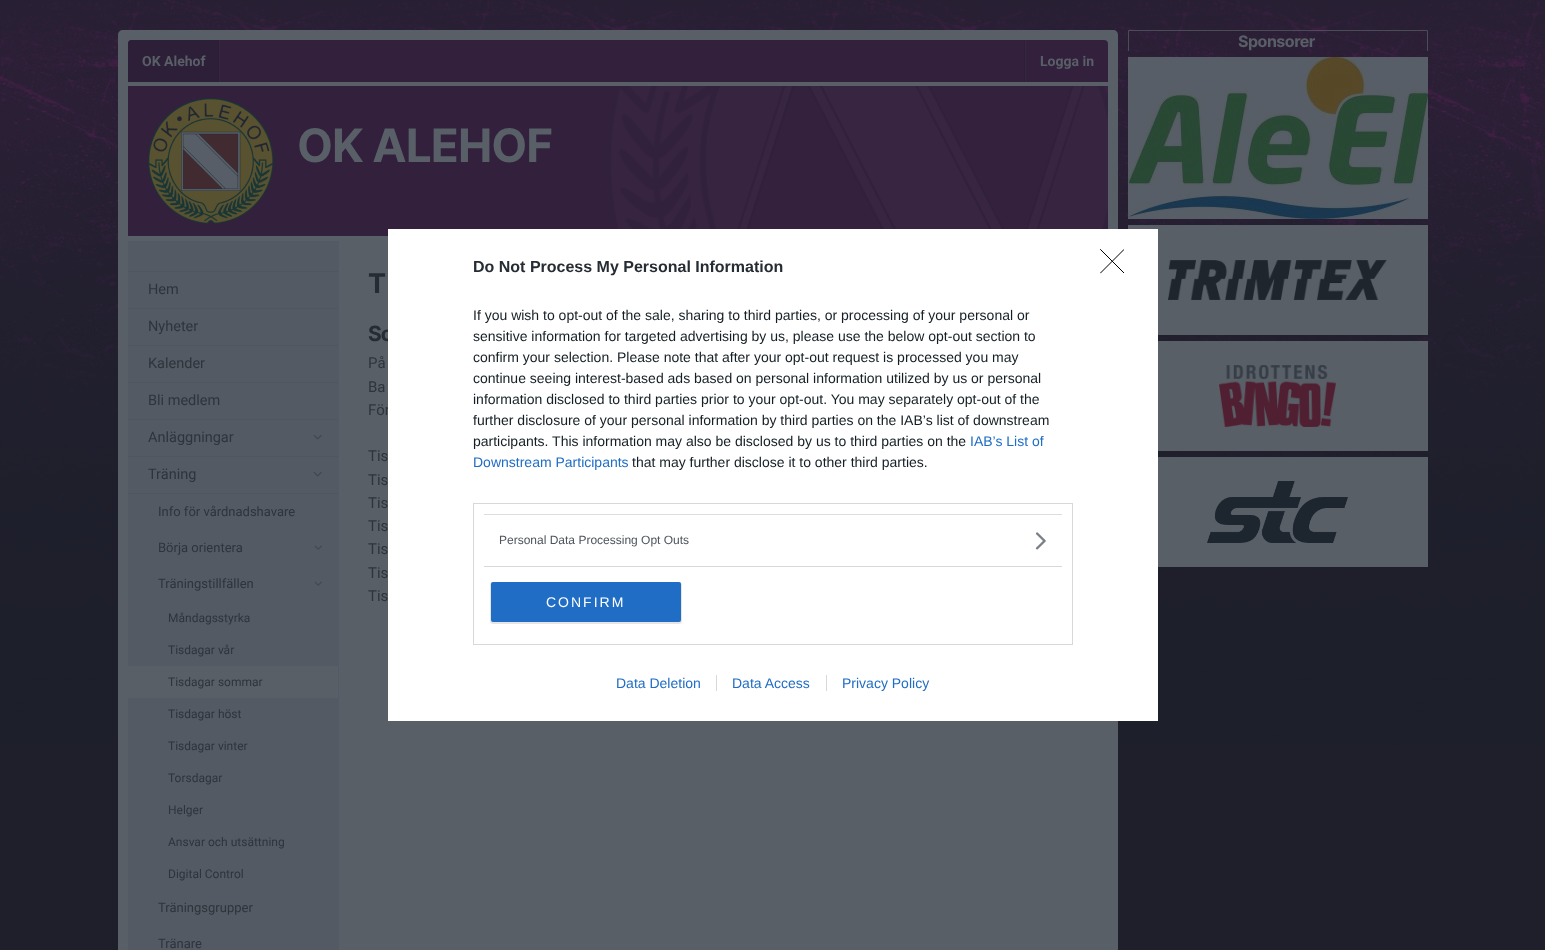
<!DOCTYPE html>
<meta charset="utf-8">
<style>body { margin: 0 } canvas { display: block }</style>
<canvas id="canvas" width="1545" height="950"></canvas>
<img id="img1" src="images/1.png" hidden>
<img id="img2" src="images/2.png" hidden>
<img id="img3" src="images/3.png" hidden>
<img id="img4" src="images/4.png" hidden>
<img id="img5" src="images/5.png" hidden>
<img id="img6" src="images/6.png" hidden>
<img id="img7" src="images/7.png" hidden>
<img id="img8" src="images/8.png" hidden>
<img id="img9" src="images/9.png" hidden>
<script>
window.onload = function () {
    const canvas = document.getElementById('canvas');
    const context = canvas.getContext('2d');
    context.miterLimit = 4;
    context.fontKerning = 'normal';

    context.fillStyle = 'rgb(30, 31, 43)';
    context.fillRect(0, 0, 1545, 950);
    context.drawImage(document.getElementById('img1'), 0, 0, 1545, 746);
    context.fillStyle = 'rgba(89, 95, 103, 0.71)';
    context.beginPath();
    context.moveTo(1128, 30);
    context.lineTo(1428, 30);
    context.lineTo(1427, 31);
    context.lineTo(1129, 31);
    context.closePath();
    context.fill();
    context.beginPath();
    context.moveTo(1428, 30);
    context.lineTo(1428, 51);
    context.lineTo(1427, 51);
    context.lineTo(1427, 31);
    context.closePath();
    context.fill();
    context.beginPath();
    context.moveTo(1128, 51);
    context.lineTo(1128, 30);
    context.lineTo(1129, 31);
    context.lineTo(1129, 51);
    context.closePath();
    context.fill();
    context.drawImage(document.getElementById('img2'), 1128, 57, 300, 162);
    context.fillStyle = 'rgb(89, 95, 103)';
    context.fillRect(1128, 225, 300, 110);
    context.drawImage(document.getElementById('img3'), 1168, 260, 219, 40);
    context.fillRect(1158, 341, 270, 110);
    context.drawImage(document.getElementById('img4'), 1219, 365, 117, 62);
    context.fillRect(1158, 457, 270, 110);
    context.drawImage(document.getElementById('img5'), 1207, 481, 141, 62);
    context.beginPath();
    context.moveTo(123, 30);
    context.lineTo(1113, 30);
    context.bezierCurveTo(1116, 30, 1118, 32, 1118, 35);
    context.lineTo(1118, 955);
    context.lineTo(118, 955);
    context.lineTo(118, 35);
    context.bezierCurveTo(118, 32, 120, 30, 123, 30);
    context.closePath();
    context.fill();
    context.fillStyle = 'rgb(51, 32, 61)';
    context.beginPath();
    context.roundRect(128, 40, 980, 42, [4, 4, 0, 0]);
    context.fill();
    context.fillStyle = 'rgb(55, 38, 65)';
    context.fillRect(219, 40, 1, 42);
    context.fillStyle = 'rgb(46, 31, 57)';
    context.beginPath();
    context.roundRect(128, 40, 91, 42, [4, 0, 0, 0]);
    context.fill();
    context.fillStyle = 'rgb(42, 31, 53)';
    context.fillRect(218, 40, 1, 42);
    context.fillStyle = 'rgb(46, 31, 57)';
    context.fillRect(1024, 40, 1, 42);
    context.fillStyle = 'rgb(55, 38, 65)';
    context.fillRect(1025, 40, 1, 42);
    context.fillStyle = 'rgb(51, 32, 61)';
    context.fillRect(128, 86, 980, 150);
    context.drawImage(document.getElementById('img6'), 148, 86, 960, 143);
    context.fillStyle = 'rgb(84, 90, 99)';
    context.fillRect(128, 241, 211, 709);
    context.fillStyle = 'rgb(80, 86, 94)';
    context.fillRect(128, 271, 210, 1);
    context.fillRect(128, 308, 210, 1);
    context.fillRect(128, 345, 210, 1);
    context.fillRect(128, 382, 210, 1);
    context.fillRect(128, 419, 210, 1);
    context.fillRect(128, 456, 210, 1);
    context.drawImage(document.getElementById('img7'), 313, 435, 9, 5);
    context.fillRect(128, 493, 210, 1);
    context.drawImage(document.getElementById('img7'), 313, 472, 9, 5);
    context.drawImage(document.getElementById('img8'), 314, 545, 8, 5);
    context.drawImage(document.getElementById('img8'), 314, 581, 8, 5);
    context.fillStyle = 'rgb(89, 95, 103)';
    context.fillRect(128, 666, 210, 32);
    context.letterSpacing = '-0.5px';
    context.font = 'bold 16px Inter';
    context.fillText('Sponsorer', 1238, 47);
    context.letterSpacing = '0px';
    context.font = 'bold 14px Roboto';
    context.fillText('OK Alehof', 142, 66);
    context.fillText('Logga in', 1040, 66);
    context.letterSpacing = '-1px';
    context.font = 'bold 46px Inter';
    context.fillText('OK ALEHOF', 297, 162);
    context.letterSpacing = '0px';
    context.font = '14.5px Roboto';
    context.fillStyle = 'rgb(46, 52, 60)';
    context.fillText('Hem', 148, 294);
    context.fillText('Nyheter', 148, 331);
    context.fillText('Kalender', 148, 368);
    context.fillText('Bli medlem', 148, 405);
    context.fillText('Anläggningar', 148, 442);
    context.fillText('Träning', 148, 479);
    context.font = '13px Roboto';
    context.fillText('Info för vårdnadshavare', 158, 516);
    context.fillText('Börja orientera', 158, 552);
    context.fillText('Träningstillfällen', 158, 588);
    context.font = '12px Roboto';
    context.fillText('Måndagsstyrka', 168, 622);
    context.fillText('Tisdagar vår', 168, 654);
    context.fillText('Tisdagar sommar', 168, 686);
    context.fillText('Tisdagar höst', 168, 718);
    context.fillText('Tisdagar vinter', 168, 750);
    context.fillText('Torsdagar', 168, 782);
    context.fillText('Helger', 168, 814);
    context.fillText('Ansvar och utsättning', 168, 846);
    context.fillText('Digital Control', 168, 878);
    context.font = '13px Roboto';
    context.fillText('Träningsgrupper', 158, 912);
    context.fillText('Tränare', 158, 948);
    context.letterSpacing = '-1px';
    context.font = 'bold 27px Inter';
    context.fillStyle = 'rgb(38, 44, 52)';
    context.fillText('T', 368, 293);
    context.font = 'bold 21px Inter';
    context.fillText('So', 368, 341);
    context.letterSpacing = '0px';
    context.font = '15px Roboto';
    context.fillStyle = 'rgb(46, 52, 60)';
    context.fillText('På', 368, 368);
    context.fillText('Ba', 368, 392);
    context.fillText('För', 368, 415);
    context.fillText('Tis', 368, 461);
    context.fillText('Tis', 368, 485);
    context.fillText('Tis', 368, 508);
    context.fillText('Tis', 368, 531);
    context.fillText('Tis', 368, 554);
    context.fillText('Tis', 368, 578);
    context.fillText('Tis', 368, 601);
    context.fillStyle = 'rgb(255, 255, 255)';
    context.fillRect(388, 229, 770, 492);
    context.font = 'bold 16px Liberation Sans';
    context.fillStyle = 'rgb(38, 44, 52)';
    context.fillText('Do Not Process My Personal Information', 473, 272);
    context.font = '14px Liberation Sans';
    context.fillStyle = 'rgb(20, 30, 35)';
    context.fillText('If you wish to opt-out of the sale, sharing to third parties, or processing of your personal or', 473, 320);
    context.fillText('sensitive information for targeted advertising by us, please use the below opt-out section to', 473, 341);
    context.fillText('confirm your selection. Please note that after your opt-out request is processed you may', 473, 362);
    context.fillText('continue seeing interest-based ads based on personal information utilized by us or personal', 473, 383);
    context.fillText('information disclosed to third parties prior to your opt-out. You may separately opt-out of the', 473, 404);
    context.fillText('further disclosure of your personal information by third parties on the IAB’s list of downstream', 473, 425);
    context.fillText('participants. This information may also be disclosed by us to third parties on the', 473, 446);
    context.fillStyle = 'rgb(32, 109, 197)';
    context.fillText('IAB’s List of', 970, 446);
    context.fillText('Downstream Participants', 473, 467);
    context.fillStyle = 'rgb(20, 30, 35)';
    context.fillText('that may further disclose it to other third parties.', 632, 467);
    context.strokeStyle = 'rgb(216, 216, 216)';
    context.strokeRect(473.5, 503.5, 599, 141);
    context.fillStyle = 'rgb(221, 221, 221)';
    context.fillRect(484, 514, 578, 1);
    context.fillStyle = 'rgb(216, 216, 216)';
    context.fillRect(484, 566, 578, 1);
    context.font = '12px Liberation Sans';
    context.fillStyle = 'rgb(77, 84, 93)';
    context.fillText('Personal Data Processing Opt Outs', 499, 544);
    context.drawImage(document.getElementById('img9'), 1035, 532, 11, 18);
    context.fillStyle = 'rgba(0, 0, 0, 0.1)';
    context.filter = 'blur(0.5px)';
    context.beginPath();
    context.roundRect(490, 582, 192, 42, 3);
    context.fill();
    context.filter = 'none';
    context.fillStyle = 'rgb(32, 109, 197)';
    context.beginPath();
    context.roundRect(491, 582, 190, 40, 2);
    context.fill();
    context.letterSpacing = '2px';
    context.font = '14px Liberation Sans';
    context.fillStyle = 'rgb(255, 255, 255)';
    context.fillText('CONFIRM', 546, 607);
    context.save();
    context.beginPath();
    context.rect(1100, 249, 24, 25);
    context.clip();
    context.beginPath();
    context.moveTo(1100.5, 249.5);
    context.lineTo(1124, 273);
    context.moveTo(1124, 249.5);
    context.lineTo(1100.5, 273);
    context.strokeStyle = 'rgb(0, 0, 0)';
    context.lineCap = 'round';
    context.lineJoin = 'round';
    context.stroke();
    context.restore();
    context.letterSpacing = '0px';
    context.fillStyle = 'rgb(32, 109, 197)';
    context.fillText('Data Deletion', 616, 688);
    context.fillText('Data Access', 732, 688);
    context.fillStyle = 'rgb(216, 216, 216)';
    context.fillRect(716, 675, 1, 16);
    context.fillStyle = 'rgb(32, 109, 197)';
    context.fillText('Privacy Policy', 842, 688);
    context.fillStyle = 'rgb(216, 216, 216)';
    context.fillRect(826, 675, 1, 16);
};
</script>
